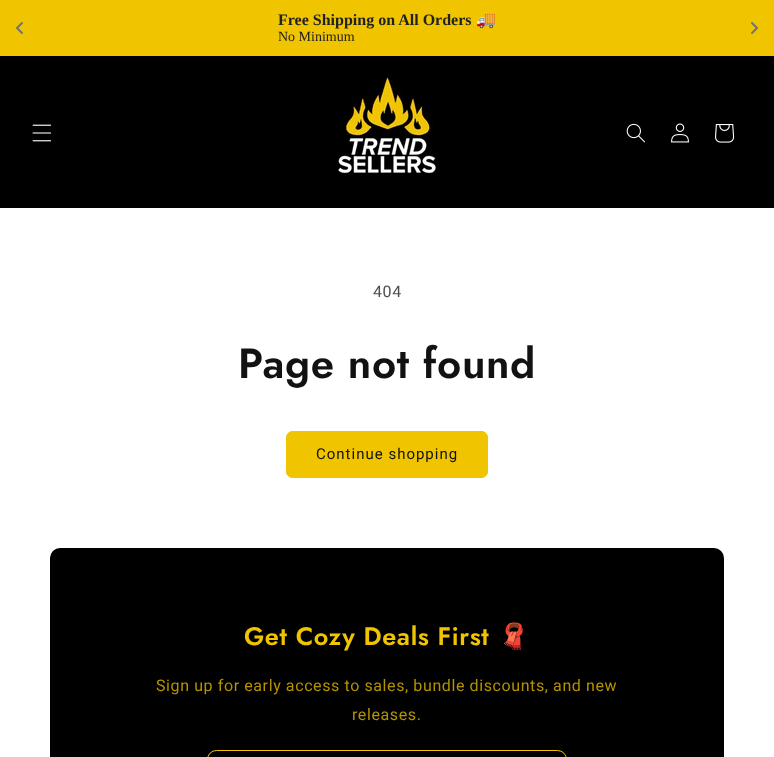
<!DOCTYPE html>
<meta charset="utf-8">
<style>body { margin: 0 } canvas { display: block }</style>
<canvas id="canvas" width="774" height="757"></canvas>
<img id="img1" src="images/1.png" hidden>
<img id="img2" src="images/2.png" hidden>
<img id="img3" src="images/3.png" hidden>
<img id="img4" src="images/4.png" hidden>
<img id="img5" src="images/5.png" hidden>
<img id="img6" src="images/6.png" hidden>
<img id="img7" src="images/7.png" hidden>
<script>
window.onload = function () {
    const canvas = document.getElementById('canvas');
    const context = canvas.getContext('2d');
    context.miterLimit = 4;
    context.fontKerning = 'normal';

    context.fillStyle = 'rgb(255, 255, 255)';
    context.fillRect(0, 0, 774, 757);
    context.fillStyle = 'rgb(241, 196, 0)';
    context.fillRect(0, 0, 774, 56);
    context.drawImage(document.getElementById('img1'), 16, 22, 7, 12);
    context.drawImage(document.getElementById('img2'), 751, 22, 7, 12);
    context.fillStyle = 'rgb(0, 0, 0)';
    context.fillRect(0, 56, 774, 152);
    context.drawImage(document.getElementById('img3'), 32, 124, 20, 18);
    context.drawImage(document.getElementById('img4'), 338, 73, 99, 101);
    context.drawImage(document.getElementById('img5'), 626, 123, 19, 20);
    context.drawImage(document.getElementById('img6'), 671, 123, 18, 20);
    context.drawImage(document.getElementById('img7'), 715, 124, 20, 19);
    context.fillStyle = 'rgb(241, 196, 0)';
    context.beginPath();
    context.roundRect(286, 431, 202, 47, 7);
    context.fill();
    context.beginPath();
    context.roundRect(286.5, 431.5, 201, 46, 6.5);
    context.strokeStyle = 'rgb(241, 196, 0)';
    context.stroke();
    context.fillStyle = 'rgb(0, 0, 0)';
    context.beginPath();
    context.roundRect(50, 548, 674, 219, 10);
    context.fill();
    context.beginPath();
    context.roundRect(207.5, 750.5, 359, 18, 10.5);
    context.stroke();
    context.font = 'bold 16px Liberation Serif';
    context.fillStyle = 'rgb(32, 34, 35)';
    context.fillText('Free Shipping on All Orders', 278, 25);
    context.font = 'bold 16px Noto Color Emoji';
    context.fillText('🚚', 476, 25);
    context.font = '14px Liberation Serif';
    context.fillText('No Minimum', 278, 41);
    context.letterSpacing = '0.6px';
    context.font = '16px Roboto';
    context.fillStyle = 'rgb(77, 77, 77)';
    context.fillText('404', 373, 297);
    context.font = '600 42px Jost';
    context.fillStyle = 'rgb(18, 18, 18)';
    context.fillText('Page not found', 238, 378);
    context.letterSpacing = '1px';
    context.font = '15px Roboto';
    context.fillText('Continue shopping', 316, 459);
    context.letterSpacing = '0.6px';
    context.font = '600 25.25px Jost';
    context.fillStyle = 'rgb(241, 196, 0)';
    context.fillText('Get Cozy Deals First', 244, 645);
    context.font = 'bold 25.25px Noto Color Emoji';
    context.fillText('🧣', 498, 645);
    context.font = '16px Roboto';
    context.fillStyle = 'rgb(181, 147, 0)';
    context.fillText('Sign up for early access to sales, bundle discounts, and new', 156, 691);
    context.fillText('releases.', 352, 720);
};
</script>
